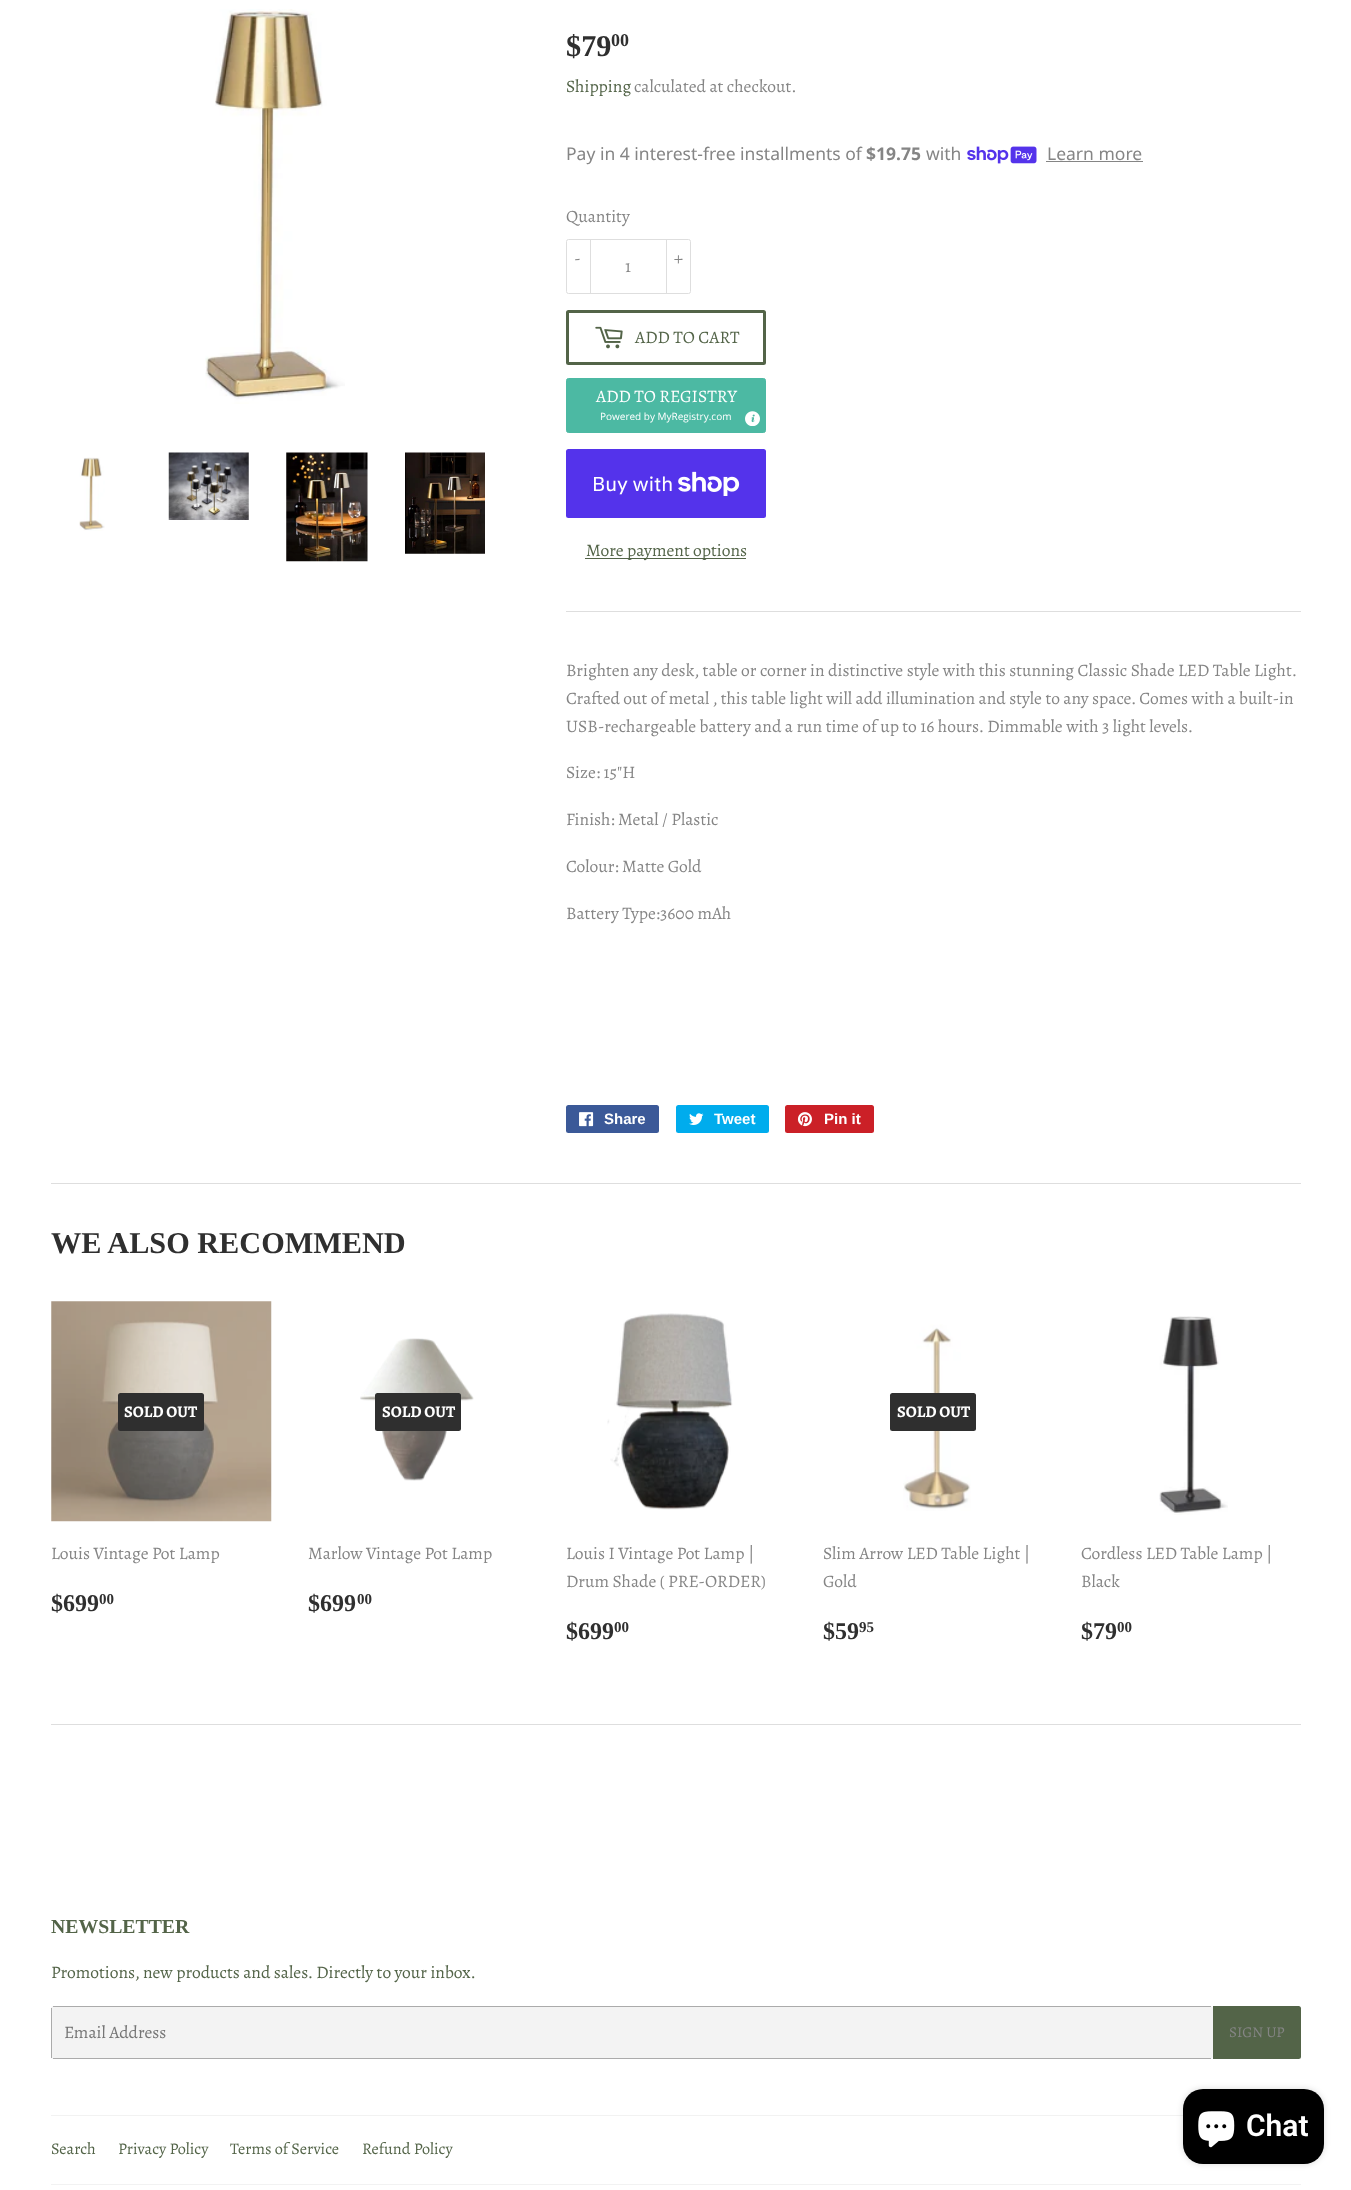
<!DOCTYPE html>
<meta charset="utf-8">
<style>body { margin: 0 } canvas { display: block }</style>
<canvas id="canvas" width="1351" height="2190"></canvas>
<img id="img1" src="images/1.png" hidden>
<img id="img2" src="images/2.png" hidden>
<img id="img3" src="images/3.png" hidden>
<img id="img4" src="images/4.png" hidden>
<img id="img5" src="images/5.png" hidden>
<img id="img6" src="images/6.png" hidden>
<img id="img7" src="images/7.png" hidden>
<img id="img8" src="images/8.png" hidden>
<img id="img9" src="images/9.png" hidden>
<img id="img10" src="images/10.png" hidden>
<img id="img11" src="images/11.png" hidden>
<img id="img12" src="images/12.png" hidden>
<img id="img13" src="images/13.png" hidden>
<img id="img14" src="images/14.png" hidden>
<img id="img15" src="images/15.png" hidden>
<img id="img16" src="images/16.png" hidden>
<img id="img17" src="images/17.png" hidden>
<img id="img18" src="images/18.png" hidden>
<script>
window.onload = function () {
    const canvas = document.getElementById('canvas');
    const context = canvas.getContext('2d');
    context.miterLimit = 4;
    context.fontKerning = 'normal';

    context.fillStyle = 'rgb(255, 255, 255)';
    context.fillRect(0, 0, 1351, 2190);
    context.drawImage(document.getElementById('img1'), 205, 9, 140, 395);
    context.drawImage(document.getElementById('img2'), 79, 457, 26, 74);
    context.drawImage(document.getElementById('img3'), 168, 452, 81, 68);
    context.drawImage(document.getElementById('img4'), 286, 452, 82, 110);
    context.drawImage(document.getElementById('img5'), 405, 452, 80, 102);
    context.drawImage(document.getElementById('img6'), 967, 146, 70, 18);
    context.fillStyle = 'rgb(133, 133, 133)';
    context.fillRect(1046, 161, 97, 1);
    context.beginPath();
    context.roundRect(566.5, 239.5, 124, 54, 2);
    context.strokeStyle = 'rgb(222, 222, 222)';
    context.stroke();
    context.fillStyle = 'rgb(222, 222, 222)';
    context.fillRect(590, 239, 1, 55);
    context.fillRect(666, 239, 1, 55);
    context.beginPath();
    context.roundRect(567.5, 311.5, 197, 52, 1);
    context.strokeStyle = 'rgb(83, 100, 72)';
    context.lineWidth = 3;
    context.stroke();
    context.drawImage(document.getElementById('img7'), 595, 326, 28, 23);
    context.fillStyle = 'rgb(76, 185, 163)';
    context.beginPath();
    context.roundRect(566.5, 378.5, 199, 54, 2);
    context.fill();
    context.strokeStyle = 'rgb(76, 185, 163)';
    context.lineWidth = 1;
    context.stroke();
    context.drawImage(document.getElementById('img8'), 745, 411, 15, 15);
    context.fillStyle = 'rgb(84, 51, 235)';
    context.beginPath();
    context.roundRect(566, 449, 200, 69, 2.5);
    context.fill();
    context.drawImage(document.getElementById('img9'), 678, 471, 62, 25);
    context.fillStyle = 'rgb(83, 100, 72)';
    context.fillRect(585, 558, 161, 1);
    context.fillStyle = 'rgb(222, 222, 222)';
    context.fillRect(566, 611, 735, 1);
    context.fillStyle = 'rgb(59, 89, 152)';
    context.beginPath();
    context.roundRect(566, 1105, 93, 28, 2.5);
    context.fill();
    context.drawImage(document.getElementById('img10'), 579, 1112, 15, 15);
    context.fillStyle = 'rgb(0, 172, 237)';
    context.beginPath();
    context.roundRect(676, 1105, 93, 28, 2.5);
    context.fill();
    context.drawImage(document.getElementById('img11'), 689, 1113, 15, 12);
    context.fillStyle = 'rgb(203, 32, 39)';
    context.beginPath();
    context.roundRect(785, 1105, 89, 28, 2.5);
    context.fill();
    context.drawImage(document.getElementById('img12'), 797, 1112, 15, 15);
    context.fillStyle = 'rgb(222, 222, 222)';
    context.fillRect(51, 1183, 1250, 1);
    context.drawImage(document.getElementById('img13'), 51, 1301, 221, 221);
    context.fillStyle = 'rgb(47, 47, 47)';
    context.beginPath();
    context.roundRect(118, 1393, 86, 38, 2.5);
    context.fill();
    context.drawImage(document.getElementById('img14'), 360, 1338, 114, 143);
    context.beginPath();
    context.roundRect(375, 1393, 86, 38, 2.5);
    context.fill();
    context.drawImage(document.getElementById('img15'), 607, 1313, 126, 197);
    context.drawImage(document.getElementById('img16'), 903, 1324, 68, 187);
    context.beginPath();
    context.roundRect(890, 1393, 86, 38, 2.5);
    context.fill();
    context.drawImage(document.getElementById('img17'), 1159, 1316, 69, 199);
    context.fillStyle = 'rgb(222, 222, 222)';
    context.fillRect(51, 1724, 1250, 1);
    context.fillStyle = 'rgb(243, 243, 243)';
    context.beginPath();
    context.roundRect(51, 2006, 1162, 53, 2.5);
    context.fill();
    context.fillStyle = 'rgb(171, 171, 171)';
    context.fillRect(53, 2006, 1158, 1);
    context.fillRect(53, 2058, 1158, 1);
    context.fillRect(51, 2008, 1, 50);
    context.fillStyle = 'rgb(83, 100, 72)';
    context.beginPath();
    context.roundRect(1213, 2006, 88, 53, [0, 2.5, 2.5, 0]);
    context.fill();
    context.fillStyle = 'rgb(242, 242, 242)';
    context.fillRect(51, 2115, 1132, 1);
    context.fillRect(51, 2184, 1250, 1);
    context.fillStyle = 'rgba(0, 0, 0, 0.15)';
    context.filter = 'blur(3px)';
    context.beginPath();
    context.roundRect(1183, 2089, 141, 75, 20);
    context.fill();
    context.filter = 'none';
    context.fillStyle = 'rgb(0, 0, 0)';
    context.beginPath();
    context.roundRect(1183, 2089, 141, 75, 20);
    context.fill();
    context.drawImage(document.getElementById('img18'), 1198, 2111, 37, 37);
    context.font = 'bold 30.25px Liberation Serif';
    context.fillStyle = 'rgb(47, 47, 47)';
    context.fillText('$79', 566, 56);
    context.font = 'bold 18px Liberation Serif';
    context.fillText('00', 611, 46);
    context.font = '17.5px Alegreya';
    context.fillStyle = 'rgb(83, 100, 72)';
    context.fillText('Shipping', 566, 92);
    context.fillStyle = 'rgb(133, 133, 133)';
    context.fillText('calculated at checkout.', 634, 92);
    context.font = '17.5px Noto Sans';
    context.fillText('Pay in 4 interest-free installments of', 566, 160);
    context.font = 'bold 17.5px Noto Sans';
    context.fillText('$19.75', 866, 160);
    context.font = '17.5px Noto Sans';
    context.fillText('with', 926, 160);
    context.fillText('Learn more', 1047, 160);
    context.font = '17.5px Alegreya';
    context.fillText('Quantity', 566, 222);
    context.fillText('-', 574, 264);
    context.fillText('+', 674, 264);
    context.fillText('1', 625, 272);
    context.fillStyle = 'rgb(83, 100, 72)';
    context.fillText('ADD TO CART', 635, 343);
    context.fillStyle = 'rgb(255, 255, 255)';
    context.fillText('ADD TO REGISTRY', 596, 402);
    context.font = '10px Open Sans';
    context.fillText('Powered by MyRegistry.com', 600, 420);
    context.font = '20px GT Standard';
    context.fillText('Buy with', 592, 491);
    context.font = '17.5px Alegreya';
    context.fillStyle = 'rgb(83, 100, 72)';
    context.fillText('More payment options', 586, 556);
    context.fillStyle = 'rgb(133, 133, 133)';
    context.fillText('Brighten any desk, table or corner in distinctive style with this stunning Classic Shade LED Table Light.', 566, 676);
    context.fillText('Crafted out of metal , this table light will add illumination and style to any space. Comes with a built-in', 566, 704);
    context.fillText('USB-rechargeable battery and a run time of up to 16 hours. Dimmable with 3 light levels.', 566, 732);
    context.fillText('Size: 15"H', 566, 778);
    context.fillText('Finish: Metal / Plastic', 566, 825);
    context.fillText('Colour: Matte Gold', 566, 872);
    context.fillText('Battery Type:3600 mAh', 566, 919);
    context.font = 'bold 15px Liberation Sans';
    context.fillStyle = 'rgb(255, 255, 255)';
    context.fillText('Share', 604, 1124);
    context.fillText('Tweet', 714, 1124);
    context.fillText('Pin it', 824, 1124);
    context.font = 'bold 30.25px Liberation Serif';
    context.fillStyle = 'rgb(47, 47, 47)';
    context.fillText('WE ALSO RECOMMEND', 51, 1253);
    context.font = 'bold 16.25px Alegreya';
    context.fillStyle = 'rgb(255, 255, 255)';
    context.fillText('SOLD OUT', 124, 1417);
    context.font = '17.5px Alegreya';
    context.fillStyle = 'rgb(133, 133, 133)';
    context.fillText('Louis Vintage Pot Lamp', 51, 1559);
    context.font = 'bold 24px Liberation Serif';
    context.fillStyle = 'rgb(47, 47, 47)';
    context.fillText('$699', 51, 1611);
    context.font = 'bold 15px Liberation Serif';
    context.fillText('00', 99, 1604);
    context.font = 'bold 16.25px Alegreya';
    context.fillStyle = 'rgb(255, 255, 255)';
    context.fillText('SOLD OUT', 382, 1417);
    context.font = '17.5px Alegreya';
    context.fillStyle = 'rgb(133, 133, 133)';
    context.fillText('Marlow Vintage Pot Lamp', 308, 1559);
    context.font = 'bold 24px Liberation Serif';
    context.fillStyle = 'rgb(47, 47, 47)';
    context.fillText('$699', 308, 1611);
    context.font = 'bold 15px Liberation Serif';
    context.fillText('00', 357, 1604);
    context.font = '17.5px Alegreya';
    context.fillStyle = 'rgb(133, 133, 133)';
    context.fillText('Louis I Vintage Pot Lamp |', 566, 1559);
    context.fillText('Drum Shade ( PRE-ORDER)', 566, 1587);
    context.font = 'bold 24px Liberation Serif';
    context.fillStyle = 'rgb(47, 47, 47)';
    context.fillText('$699', 566, 1639);
    context.font = 'bold 15px Liberation Serif';
    context.fillText('00', 614, 1632);
    context.font = 'bold 16.25px Alegreya';
    context.fillStyle = 'rgb(255, 255, 255)';
    context.fillText('SOLD OUT', 897, 1417);
    context.font = '17.5px Alegreya';
    context.fillStyle = 'rgb(133, 133, 133)';
    context.fillText('Slim Arrow LED Table Light |', 823, 1559);
    context.fillText('Gold', 823, 1587);
    context.font = 'bold 24px Liberation Serif';
    context.fillStyle = 'rgb(47, 47, 47)';
    context.fillText('$59', 823, 1639);
    context.font = 'bold 15px Liberation Serif';
    context.fillText('95', 859, 1632);
    context.font = '17.5px Alegreya';
    context.fillStyle = 'rgb(133, 133, 133)';
    context.fillText('Cordless LED Table Lamp |', 1081, 1559);
    context.fillText('Black', 1081, 1587);
    context.font = 'bold 24px Liberation Serif';
    context.fillStyle = 'rgb(47, 47, 47)';
    context.fillText('$79', 1081, 1639);
    context.font = 'bold 15px Liberation Serif';
    context.fillText('00', 1117, 1632);
    context.font = 'bold 19.75px Liberation Serif';
    context.fillStyle = 'rgb(83, 100, 72)';
    context.fillText('NEWSLETTER', 51, 1933);
    context.font = '17.5px Alegreya';
    context.fillText('Promotions, new products and sales. Directly to your inbox.', 51, 1978);
    context.fillStyle = 'rgb(117, 117, 117)';
    context.fillText('Email Address', 64, 2038);
    context.font = '15px Alegreya';
    context.fillStyle = 'rgb(133, 133, 133)';
    context.fillText('SIGN UP', 1229, 2037);
    context.font = '16.25px Alegreya';
    context.fillStyle = 'rgb(83, 100, 72)';
    context.fillText('Search', 51, 2154);
    context.fillText('Privacy Policy', 118, 2154);
    context.fillText('Terms of Service', 230, 2154);
    context.fillText('Refund Policy', 362, 2154);
    context.font = '600 30px Roboto';
    context.fillStyle = 'rgb(255, 255, 255)';
    context.fillText('Chat', 1246, 2136);
};
</script>
